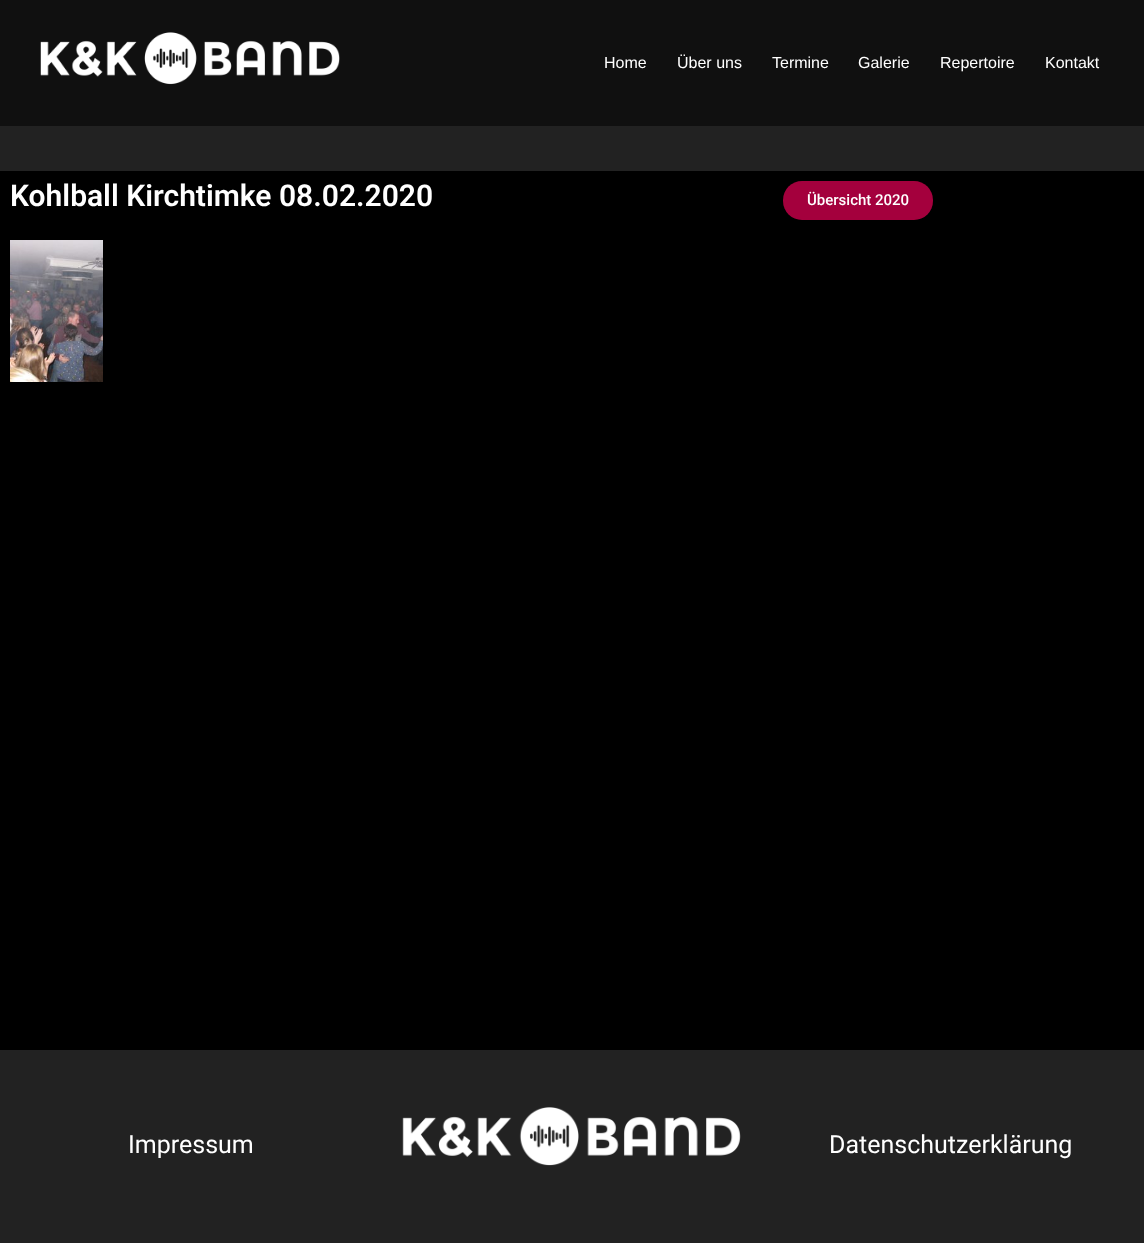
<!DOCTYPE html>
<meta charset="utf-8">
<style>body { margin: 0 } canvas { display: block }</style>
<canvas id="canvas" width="1144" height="1243"></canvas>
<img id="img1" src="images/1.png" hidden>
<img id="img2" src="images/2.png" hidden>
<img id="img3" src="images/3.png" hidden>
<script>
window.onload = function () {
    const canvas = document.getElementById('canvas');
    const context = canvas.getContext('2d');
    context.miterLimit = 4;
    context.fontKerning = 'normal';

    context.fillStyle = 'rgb(34, 34, 34)';
    context.fillRect(0, 0, 1144, 1243);
    context.fillStyle = 'rgb(16, 16, 16)';
    context.fillRect(0, 0, 1144, 126);
    context.drawImage(document.getElementById('img1'), 40, 32, 300, 53);
    context.fillStyle = 'rgb(0, 0, 0)';
    context.fillRect(0, 171, 1144, 879);
    context.fillStyle = 'rgb(164, 0, 61)';
    context.beginPath();
    context.roundRect(783, 181, 150, 39, 19);
    context.fill();
    context.drawImage(document.getElementById('img2'), 10, 240, 93, 142);
    context.drawImage(document.getElementById('img3'), 402, 1107, 339, 59);
    context.font = '16px Liberation Sans';
    context.fillStyle = 'rgb(255, 255, 255)';
    context.fillText('Home', 604, 68);
    context.fillText('Über uns', 677, 68);
    context.fillText('Termine', 772, 68);
    context.fillText('Galerie', 858, 68);
    context.fillText('Repertoire', 940, 68);
    context.fillText('Kontakt', 1045, 68);
    context.font = '600 30px Roboto';
    context.fillText('Kohlball Kirchtimke 08.02.2020', 10, 206);
    context.font = '500 15px Roboto';
    context.fillText('Übersicht 2020', 807, 205);
    context.font = '25px Roboto';
    context.fillText('Impressum', 128, 1153);
    context.fillText('Datenschutzerklärung', 829, 1153);
};
</script>
